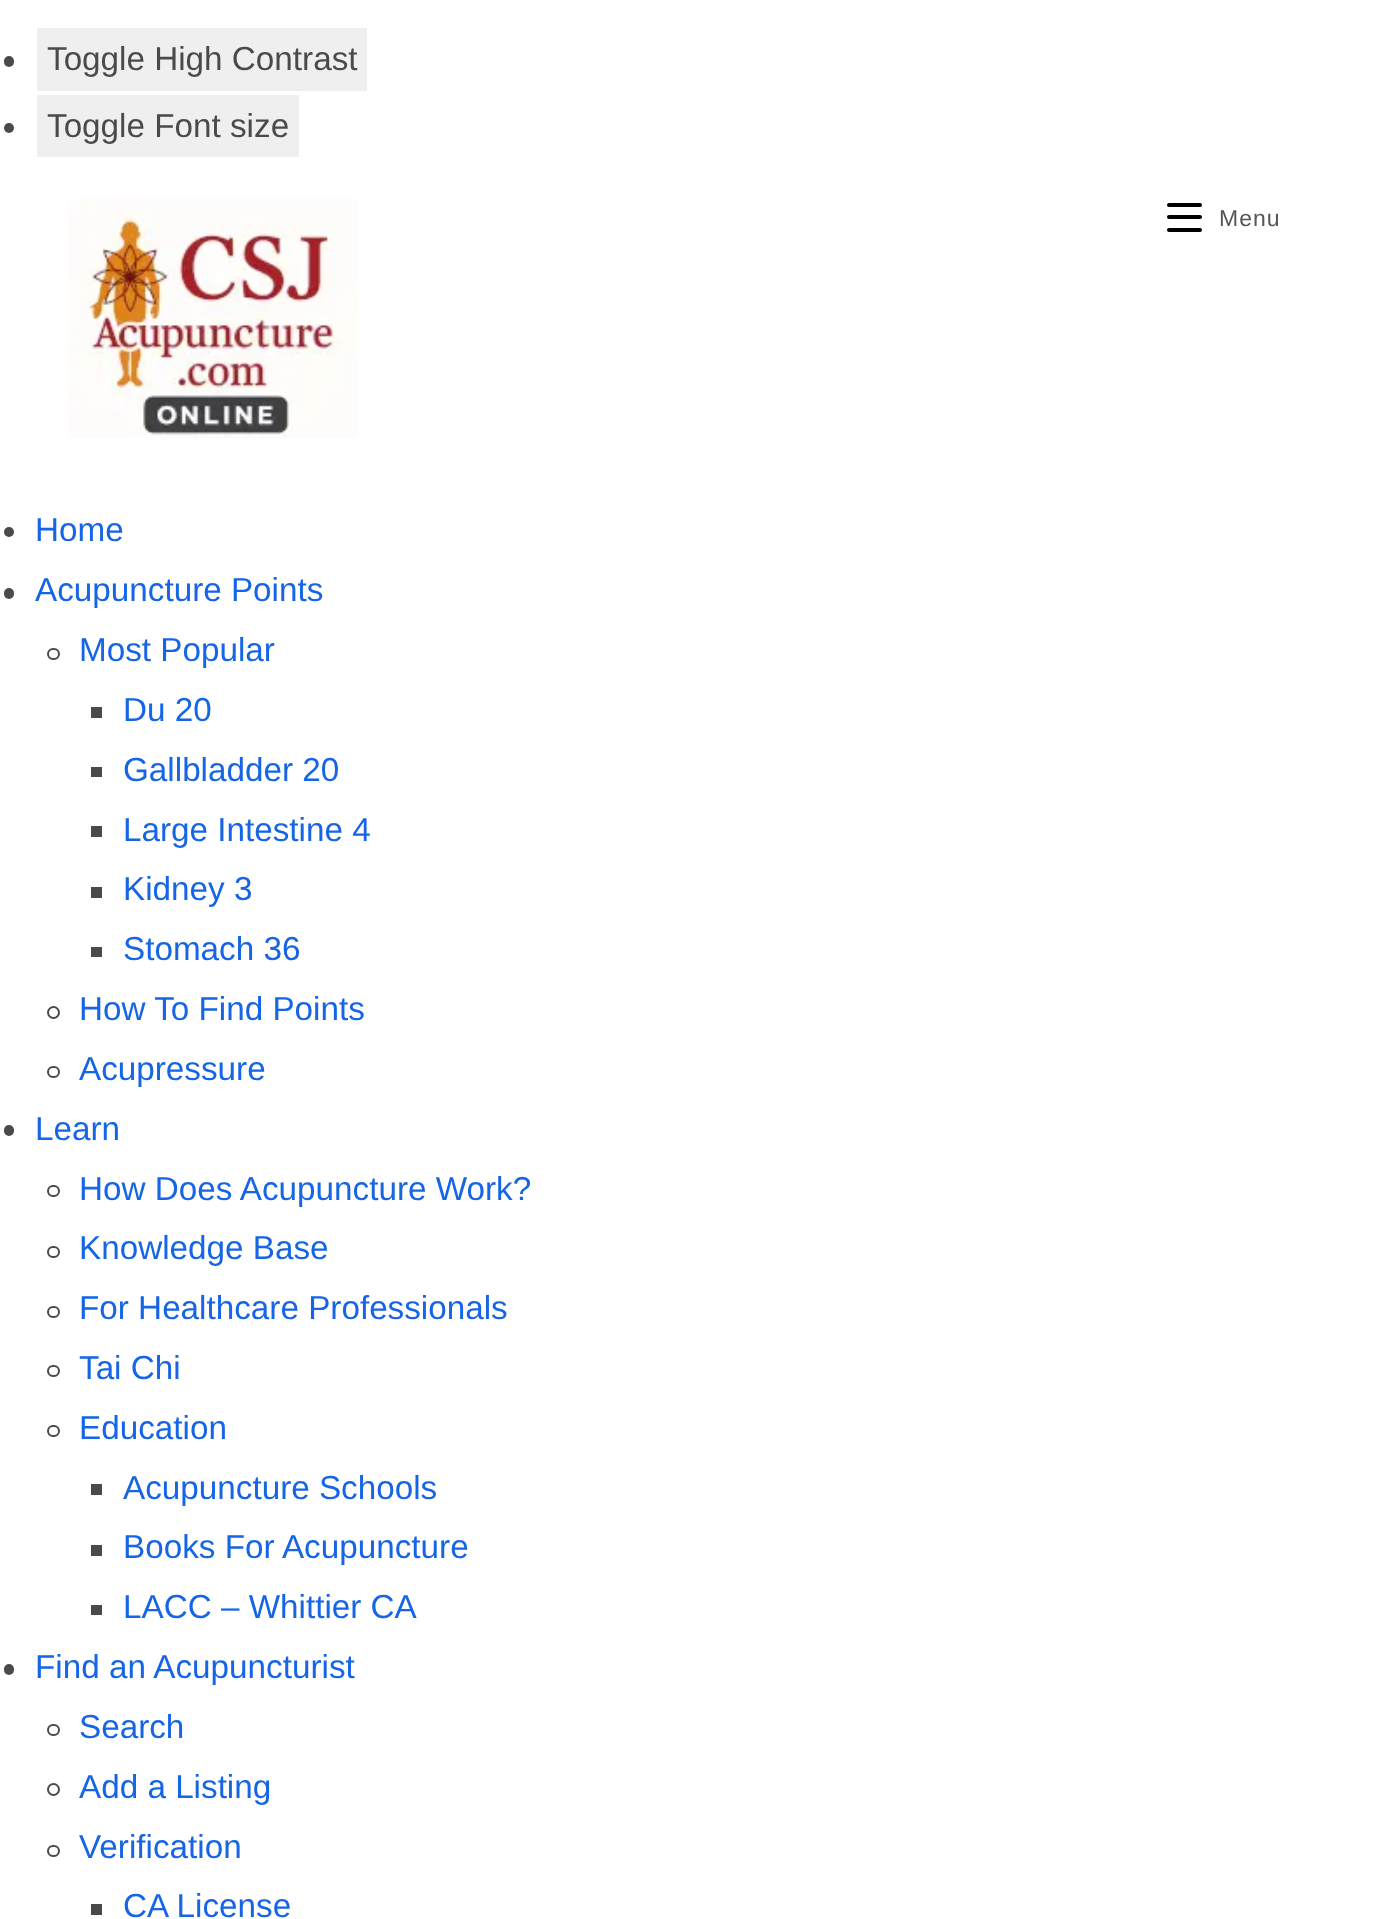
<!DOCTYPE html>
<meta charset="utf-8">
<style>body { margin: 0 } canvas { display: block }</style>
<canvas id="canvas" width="1374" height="1919"></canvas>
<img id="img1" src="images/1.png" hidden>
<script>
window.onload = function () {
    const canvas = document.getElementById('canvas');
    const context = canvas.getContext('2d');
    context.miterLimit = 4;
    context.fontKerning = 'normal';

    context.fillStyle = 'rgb(255, 255, 255)';
    context.fillRect(0, 0, 1374, 1919);
    context.fillStyle = 'rgb(74, 74, 74)';
    context.beginPath();
    context.roundRect(4, 56, 10, 11, 5);
    context.fill();
    context.fillStyle = 'rgb(239, 239, 239)';
    context.fillRect(37, 28, 330, 63);
    context.fillStyle = 'rgb(74, 74, 74)';
    context.beginPath();
    context.arc(9, 128, 5, 0, 2 * Math.PI);
    context.fill();
    context.fillStyle = 'rgb(239, 239, 239)';
    context.fillRect(37, 95, 262, 62);
    context.drawImage(document.getElementById('img1'), 68, 199, 289, 239);
    context.fillStyle = 'rgb(0, 0, 0)';
    context.beginPath();
    context.roundRect(1167, 215, 35, 4, 2);
    context.fill();
    context.beginPath();
    context.roundRect(1167, 203, 35, 4, 2);
    context.fill();
    context.beginPath();
    context.roundRect(1167, 228, 35, 4, 2);
    context.fill();
    context.fillStyle = 'rgb(74, 74, 74)';
    context.beginPath();
    context.arc(9, 532, 5, 0, 2 * Math.PI);
    context.fill();
    context.beginPath();
    context.roundRect(4, 588, 10, 11, 5);
    context.fill();
    context.beginPath();
    context.roundRect(48, 649, 11, 10, 5);
    context.strokeStyle = 'rgb(74, 74, 74)';
    context.lineWidth = 2;
    context.stroke();
    context.fillRect(91, 707, 11, 11);
    context.fillRect(91, 767, 11, 10);
    context.fillRect(91, 826, 11, 11);
    context.fillRect(91, 887, 11, 11);
    context.fillRect(91, 947, 11, 10);
    context.beginPath();
    context.arc(53.5, 1012.5, 5.5, 0, 2 * Math.PI);
    context.stroke();
    context.beginPath();
    context.roundRect(48, 1067, 11, 10, 5);
    context.stroke();
    context.beginPath();
    context.roundRect(4, 1125, 10, 11, 5);
    context.fill();
    context.beginPath();
    context.roundRect(48, 1186, 11, 10, 5);
    context.stroke();
    context.beginPath();
    context.roundRect(48, 1247, 11, 10, 5);
    context.stroke();
    context.beginPath();
    context.roundRect(48, 1307, 11, 10, 5);
    context.stroke();
    context.beginPath();
    context.roundRect(48, 1366, 11, 10, 5);
    context.stroke();
    context.beginPath();
    context.roundRect(48, 1426, 11, 10, 5);
    context.stroke();
    context.fillRect(91, 1484, 11, 11);
    context.fillRect(91, 1545, 11, 11);
    context.fillRect(91, 1605, 11, 10);
    context.beginPath();
    context.roundRect(4, 1664, 10, 11, 5);
    context.fill();
    context.beginPath();
    context.roundRect(48, 1725, 11, 10, 5);
    context.stroke();
    context.beginPath();
    context.arc(53.5, 1789.5, 5.5, 0, 2 * Math.PI);
    context.stroke();
    context.beginPath();
    context.roundRect(48, 1846, 11, 10, 5);
    context.stroke();
    context.fillRect(91, 1904, 11, 11);
    context.font = '33.25px Liberation Sans';
    context.fillText('Toggle High Contrast', 47, 70);
    context.fillText('Toggle Font size', 47, 137);
    context.letterSpacing = '1px';
    context.font = '23px Liberation Sans';
    context.fillStyle = 'rgb(85, 85, 85)';
    context.fillText('Menu', 1219, 226);
    context.letterSpacing = '0px';
    context.font = '33.25px Liberation Sans';
    context.fillStyle = 'rgb(21, 101, 230)';
    context.fillText('Home', 35, 541);
    context.fillText('Acupuncture Points', 35, 601);
    context.fillText('Most Popular', 79, 661);
    context.fillText('Du 20', 123, 721);
    context.fillText('Gallbladder 20', 123, 781);
    context.fillText('Large Intestine 4', 123, 841);
    context.fillText('Kidney 3', 123, 900);
    context.fillText('Stomach 36', 123, 960);
    context.fillText('How To Find Points', 79, 1020);
    context.fillText('Acupressure', 79, 1080);
    context.fillText('Learn', 35, 1140);
    context.fillText('How Does Acupuncture Work?', 79, 1200);
    context.fillText('Knowledge Base', 79, 1259);
    context.fillText('For Healthcare Professionals', 79, 1319);
    context.fillText('Tai Chi', 79, 1379);
    context.fillText('Education', 79, 1439);
    context.fillText('Acupuncture Schools', 123, 1499);
    context.fillText('Books For Acupuncture', 123, 1558);
    context.fillText('LACC – Whittier CA', 123, 1618);
    context.fillText('Find an Acupuncturist', 35, 1678);
    context.fillText('Search', 79, 1738);
    context.fillText('Add a Listing', 79, 1798);
    context.fillText('Verification', 79, 1858);
    context.fillText('CA License', 123, 1917);
};
</script>
